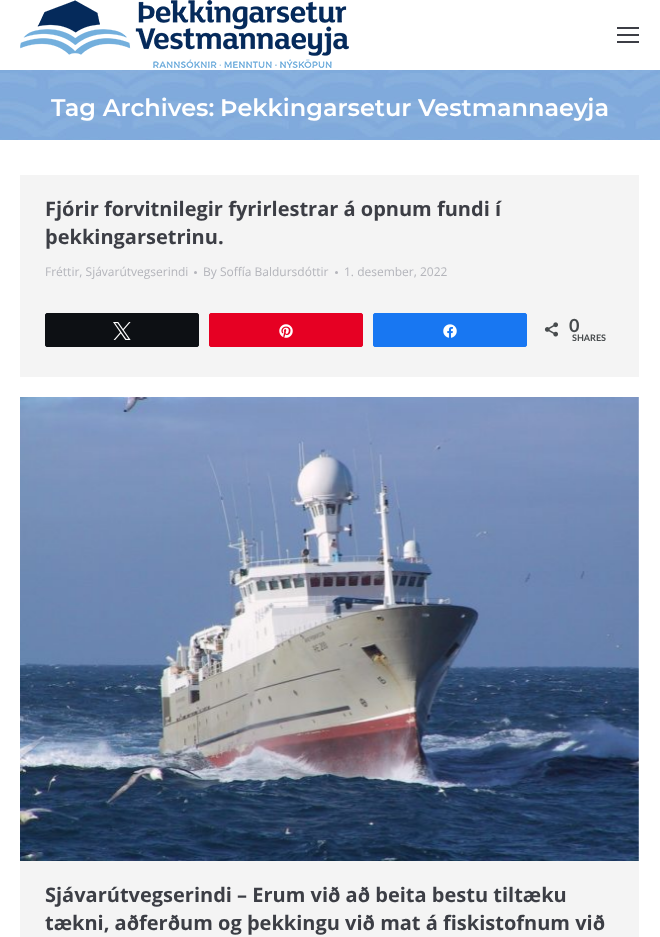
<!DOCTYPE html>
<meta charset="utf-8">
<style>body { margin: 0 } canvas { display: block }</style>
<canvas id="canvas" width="660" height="937"></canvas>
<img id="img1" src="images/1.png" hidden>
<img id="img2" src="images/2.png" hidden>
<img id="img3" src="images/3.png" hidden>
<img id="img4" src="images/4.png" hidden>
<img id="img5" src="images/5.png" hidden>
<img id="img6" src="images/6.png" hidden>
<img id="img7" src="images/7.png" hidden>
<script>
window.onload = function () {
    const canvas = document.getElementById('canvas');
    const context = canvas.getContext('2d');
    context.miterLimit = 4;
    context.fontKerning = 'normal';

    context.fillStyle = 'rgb(255, 255, 255)';
    context.fillRect(0, 0, 660, 937);
    context.drawImage(document.getElementById('img1'), 20, 0, 329, 68);
    context.fillStyle = 'rgb(60, 62, 69)';
    context.fillRect(617, 27, 22, 2);
    context.fillRect(617, 34, 22, 2);
    context.fillRect(617, 41, 22, 2);
    context.drawImage(document.getElementById('img2'), 0, 70, 660, 70);
    context.fillStyle = 'rgb(244, 244, 244)';
    context.fillRect(20, 175, 619, 202);
    context.fillStyle = 'rgb(180, 181, 187)';
    context.beginPath();
    context.arc(195.5, 272.5, 1.5, 0, 2 * Math.PI);
    context.fill();
    context.beginPath();
    context.arc(336.5, 272.5, 1.5, 0, 2 * Math.PI);
    context.fill();
    context.fillStyle = 'rgb(13, 16, 20)';
    context.beginPath();
    context.roundRect(45.5, 313.5, 153, 33, 1.5);
    context.fill();
    context.strokeStyle = 'rgb(13, 16, 20)';
    context.stroke();
    context.drawImage(document.getElementById('img3'), 113, 322, 18, 18);
    context.fillStyle = 'rgb(230, 0, 35)';
    context.beginPath();
    context.roundRect(209.5, 313.5, 153, 33, 1.5);
    context.fill();
    context.strokeStyle = 'rgb(230, 0, 35)';
    context.stroke();
    context.drawImage(document.getElementById('img4'), 279, 324, 14, 14);
    context.fillStyle = 'rgb(24, 119, 242)';
    context.beginPath();
    context.roundRect(373.5, 313.5, 153, 33, 1.5);
    context.fill();
    context.strokeStyle = 'rgb(24, 119, 242)';
    context.stroke();
    context.drawImage(document.getElementById('img5'), 443, 324, 14, 14);
    context.drawImage(document.getElementById('img6'), 544, 322, 14, 15);
    context.fillStyle = 'rgb(244, 244, 244)';
    context.fillRect(20, 397, 619, 540);
    context.drawImage(document.getElementById('img7'), 20, 397, 619, 464);
    context.save();
    context.beginPath();
    context.rect(51, 91, 558, 34);
    context.clip();
    context.font = '600 24px Montserrat';
    context.fillStyle = 'rgb(255, 255, 255)';
    context.fillText('Tag Archives:', 51, 116);
    context.restore();
    context.font = '600 24px Montserrat';
    context.fillStyle = 'rgb(255, 255, 255)';
    context.fillText('Þekkingarsetur Vestmannaeyja', 220, 116);
    context.font = 'bold 20px Open Sans';
    context.fillStyle = 'rgb(60, 62, 69)';
    context.fillText('Fjórir forvitnilegir fyrirlestrar á opnum fundi í', 45, 216);
    context.fillText('þekkingarsetrinu.', 45, 244);
    context.font = '12px Open Sans';
    context.fillStyle = 'rgb(180, 181, 187)';
    context.fillText('Fréttir, Sjávarútvegserindi', 45, 276);
    context.fillText('By Soffía Baldursdóttir', 203, 276);
    context.fillText('1. desember, 2022', 344, 276);
    context.font = 'bold 18px Lato';
    context.fillStyle = 'rgb(71, 75, 77)';
    context.fillText('0', 569, 332);
    context.font = 'bold 9px Lato';
    context.fillText('SHARES', 572, 341);
    context.font = 'bold 20px Open Sans';
    context.fillStyle = 'rgb(60, 62, 69)';
    context.fillText('Sjávarútvegserindi – Erum við að beita bestu tiltæku', 45, 902);
    context.fillText('tækni, aðferðum og þekkingu við mat á fiskistofnum við', 45, 930);
};
</script>
